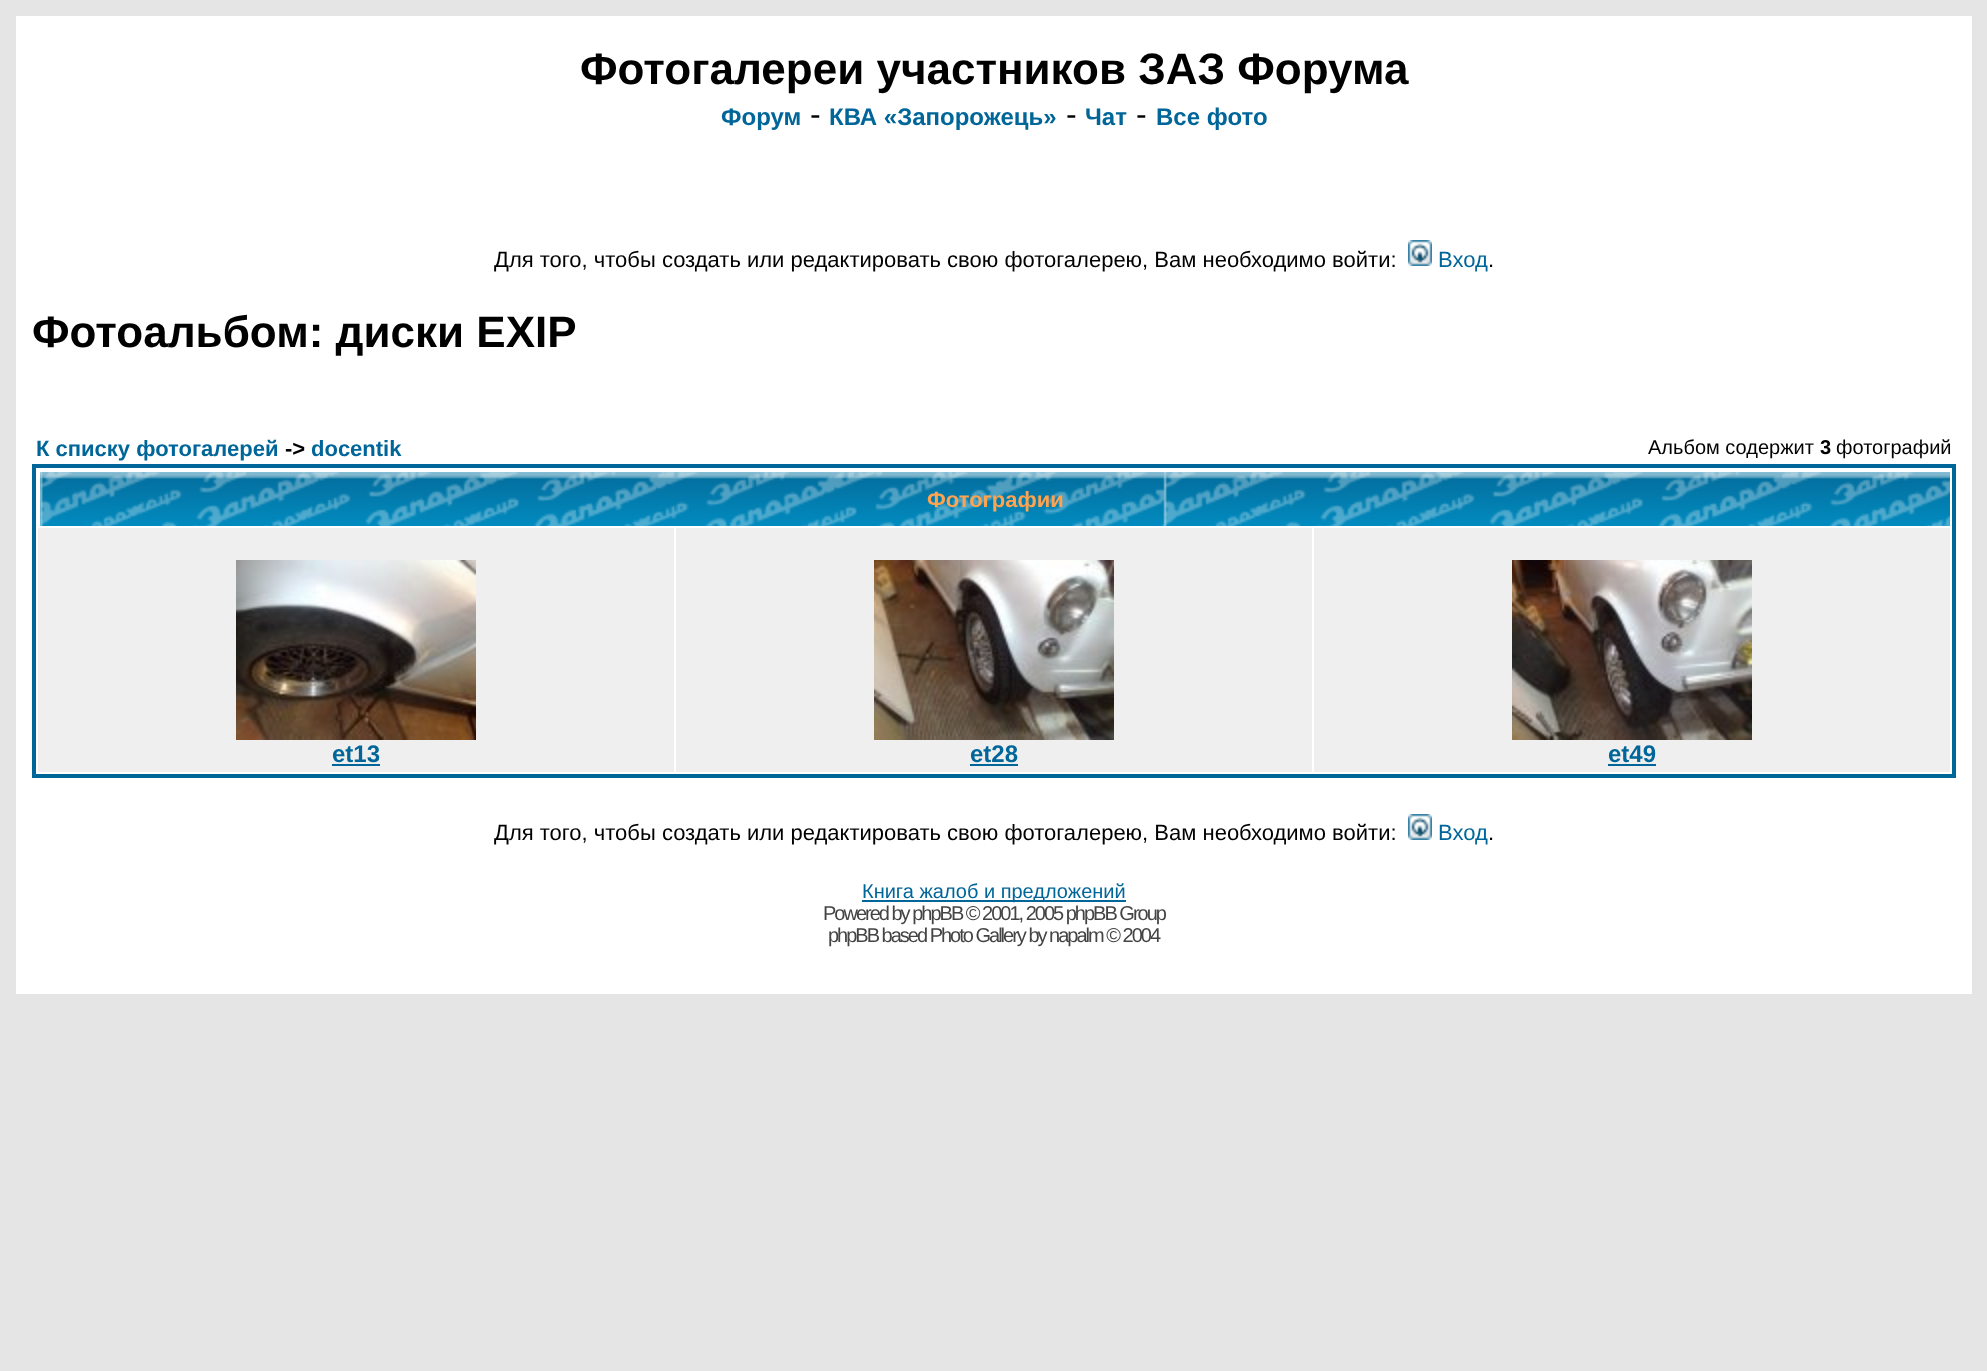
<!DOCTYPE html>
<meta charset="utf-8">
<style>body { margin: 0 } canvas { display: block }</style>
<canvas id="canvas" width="1987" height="1371"></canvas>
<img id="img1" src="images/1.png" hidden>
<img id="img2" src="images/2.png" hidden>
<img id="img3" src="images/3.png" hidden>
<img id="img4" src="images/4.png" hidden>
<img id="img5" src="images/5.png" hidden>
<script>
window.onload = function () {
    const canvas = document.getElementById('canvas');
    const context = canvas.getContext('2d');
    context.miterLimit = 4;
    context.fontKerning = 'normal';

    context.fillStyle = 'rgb(229, 229, 229)';
    context.fillRect(0, 0, 1987, 1371);
    context.fillStyle = 'rgb(255, 255, 255)';
    context.fillRect(16, 16, 1956, 978);
    context.drawImage(document.getElementById('img1'), 1408, 240, 24, 26);
    context.strokeStyle = 'rgb(0, 102, 153)';
    context.lineWidth = 4;
    context.strokeRect(34, 466, 1920, 310);
    context.drawImage(document.getElementById('img2'), 40, 472, 1910, 54);
    context.fillStyle = 'rgb(239, 239, 239)';
    context.fillRect(38, 528, 636, 244);
    context.drawImage(document.getElementById('img3'), 236, 560, 240, 180);
    context.fillStyle = 'rgb(0, 102, 153)';
    context.fillRect(332, 764, 48, 2);
    context.fillStyle = 'rgb(239, 239, 239)';
    context.fillRect(676, 528, 636, 244);
    context.drawImage(document.getElementById('img4'), 874, 560, 240, 180);
    context.fillStyle = 'rgb(0, 102, 153)';
    context.fillRect(970, 764, 48, 2);
    context.fillStyle = 'rgb(239, 239, 239)';
    context.fillRect(1314, 528, 636, 244);
    context.drawImage(document.getElementById('img5'), 1512, 560, 240, 180);
    context.fillStyle = 'rgb(0, 102, 153)';
    context.fillRect(1608, 764, 48, 2);
    context.drawImage(document.getElementById('img1'), 1408, 814, 24, 26);
    context.fillRect(862, 900, 264, 2);
    context.font = 'bold 44px Liberation Sans';
    context.fillStyle = 'rgb(0, 0, 0)';
    context.fillText('Фотогалереи участников ЗАЗ Форума', 580, 84);
    context.font = 'bold 24px Liberation Sans';
    context.fillStyle = 'rgb(0, 102, 153)';
    context.fillText('Форум', 721, 125);
    context.font = '32px Liberation Sans';
    context.fillStyle = 'rgb(0, 0, 0)';
    context.fillText('-', 810, 125);
    context.font = 'bold 24px Liberation Sans';
    context.fillStyle = 'rgb(0, 102, 153)';
    context.fillText('КВА «Запорожець»', 829, 125);
    context.font = '32px Liberation Sans';
    context.fillStyle = 'rgb(0, 0, 0)';
    context.fillText('-', 1066, 125);
    context.font = 'bold 24px Liberation Sans';
    context.fillStyle = 'rgb(0, 102, 153)';
    context.fillText('Чат', 1085, 125);
    context.font = '32px Liberation Sans';
    context.fillStyle = 'rgb(0, 0, 0)';
    context.fillText('-', 1136, 125);
    context.font = 'bold 24px Liberation Sans';
    context.fillStyle = 'rgb(0, 102, 153)';
    context.fillText('Все фото', 1156, 125);
    context.font = '22px Liberation Sans';
    context.fillStyle = 'rgb(0, 0, 0)';
    context.fillText('Для того, чтобы создать или редактировать свою фотогалерею, Вам необходимо войти:', 494, 267);
    context.fillStyle = 'rgb(0, 102, 153)';
    context.fillText('Вход', 1438, 267);
    context.fillStyle = 'rgb(0, 0, 0)';
    context.fillText('.', 1488, 267);
    context.font = 'bold 44px Liberation Sans';
    context.fillText('Фотоальбом: диски EXIP', 32, 347);
    context.font = 'bold 22px Liberation Sans';
    context.fillStyle = 'rgb(0, 102, 153)';
    context.fillText('К списку фотогалерей', 36, 456);
    context.fillStyle = 'rgb(0, 0, 0)';
    context.fillText('->', 285, 456);
    context.fillStyle = 'rgb(0, 102, 153)';
    context.fillText('docentik', 311, 456);
    context.font = '20px Liberation Sans';
    context.fillStyle = 'rgb(0, 0, 0)';
    context.fillText('Альбом содержит', 1648, 454);
    context.font = 'bold 20px Liberation Sans';
    context.fillText('3', 1820, 454);
    context.font = '20px Liberation Sans';
    context.fillText('фотографий', 1836, 454);
    context.font = 'bold 22px Liberation Sans';
    context.fillStyle = 'rgb(255, 163, 79)';
    context.fillText('Фотографии', 927, 507);
    context.font = 'bold 24px Liberation Sans';
    context.fillStyle = 'rgb(0, 102, 153)';
    context.fillText('et13', 332, 762);
    context.fillText('et28', 970, 762);
    context.fillText('et49', 1608, 762);
    context.font = '22px Liberation Sans';
    context.fillStyle = 'rgb(0, 0, 0)';
    context.fillText('Для того, чтобы создать или редактировать свою фотогалерею, Вам необходимо войти:', 494, 840);
    context.fillStyle = 'rgb(0, 102, 153)';
    context.fillText('Вход', 1438, 840);
    context.fillStyle = 'rgb(0, 0, 0)';
    context.fillText('.', 1488, 840);
    context.font = '20px Liberation Sans';
    context.fillStyle = 'rgb(0, 102, 153)';
    context.fillText('Книга жалоб и предложений', 862, 898);
    context.letterSpacing = '-2px';
    context.fillStyle = 'rgb(68, 68, 68)';
    context.fillText('Powered by phpBB © 2001, 2005 phpBB Group', 823, 920);
    context.fillText('phpBB based Photo Gallery by napalm © 2004', 828, 942);
};
</script>
